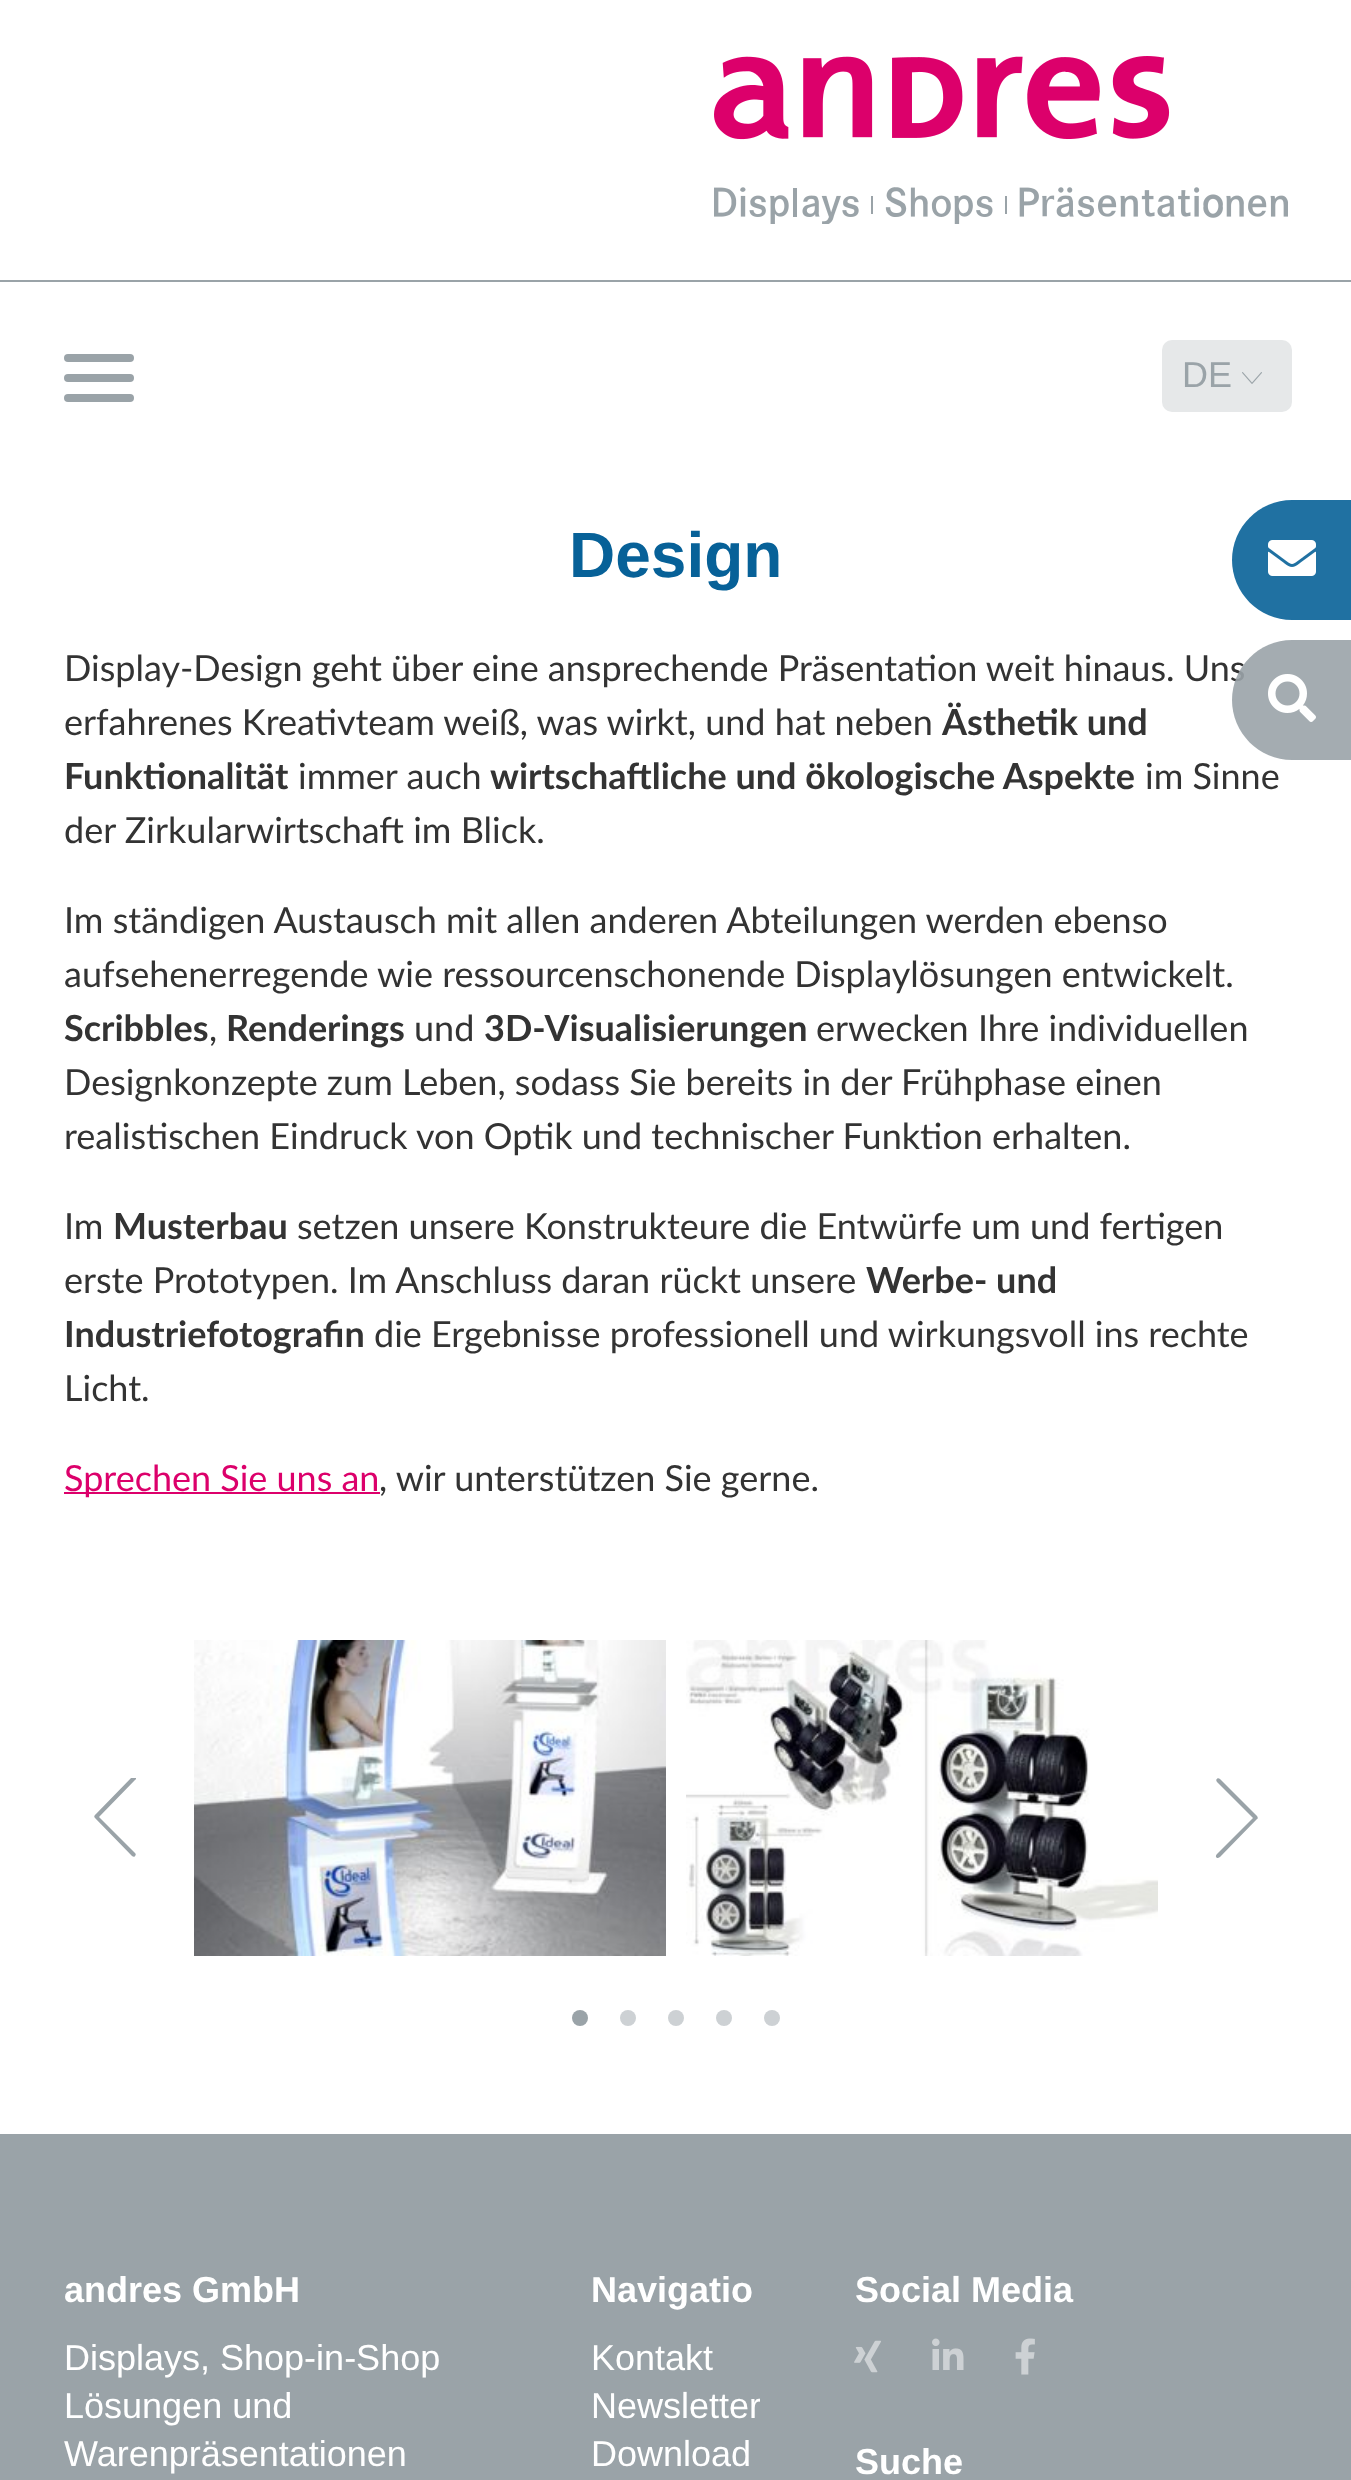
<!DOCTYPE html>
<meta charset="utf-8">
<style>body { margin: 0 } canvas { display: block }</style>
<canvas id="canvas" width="1351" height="2480"></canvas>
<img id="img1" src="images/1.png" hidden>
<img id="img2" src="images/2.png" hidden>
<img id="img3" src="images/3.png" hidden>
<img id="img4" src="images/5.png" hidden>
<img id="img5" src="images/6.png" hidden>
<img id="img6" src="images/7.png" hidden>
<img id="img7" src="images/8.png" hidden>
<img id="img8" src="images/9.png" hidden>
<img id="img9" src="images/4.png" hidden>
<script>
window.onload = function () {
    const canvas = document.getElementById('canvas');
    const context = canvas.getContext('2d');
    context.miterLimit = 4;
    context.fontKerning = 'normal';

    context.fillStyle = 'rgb(255, 255, 255)';
    context.fillRect(0, 0, 1351, 2480);
    context.drawImage(document.getElementById('img1'), 714, 56, 574, 168);
    context.fillStyle = 'rgb(154, 163, 168)';
    context.fillRect(0, 280, 1351, 2);
    context.beginPath();
    context.roundRect(64, 374, 70, 8, 4);
    context.fill();
    context.beginPath();
    context.roundRect(64, 354, 70, 8, 4);
    context.fill();
    context.beginPath();
    context.roundRect(64, 394, 70, 8, 4);
    context.fill();
    context.fillStyle = 'rgb(230, 232, 233)';
    context.beginPath();
    context.roundRect(1162, 340, 130, 72, 10);
    context.fill();
    context.drawImage(document.getElementById('img2'), 1242, 372, 20, 12);
    context.fillStyle = 'rgb(32, 113, 162)';
    context.beginPath();
    context.moveTo(1292, 500);
    context.lineTo(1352, 500);
    context.lineTo(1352, 620);
    context.lineTo(1292, 620);
    context.bezierCurveTo(1259, 620, 1232, 593, 1232, 560);
    context.bezierCurveTo(1232, 527, 1259, 500, 1292, 500);
    context.closePath();
    context.fill();
    context.drawImage(document.getElementById('img3'), 1268, 540, 48, 36);
    context.fillStyle = 'rgb(220, 0, 107)';
    context.fillRect(64, 1492, 316, 2);
    context.save();
    context.beginPath();
    context.rect(94, 1778, 42, 80);
    context.clip();
    context.fillStyle = 'rgb(154, 163, 168)';
    context.beginPath();
    context.moveTo(134, 1777);
    context.bezierCurveTo(136, 1777, 137, 1779, 135, 1780);
    context.lineTo(99, 1817);
    context.lineTo(135, 1853);
    context.bezierCurveTo(136, 1854, 136, 1855, 135, 1856);
    context.bezierCurveTo(135, 1857, 133, 1857, 132, 1856);
    context.lineTo(95, 1818);
    context.bezierCurveTo(94, 1817, 94, 1816, 95, 1815);
    context.lineTo(132, 1777);
    context.closePath();
    context.fill();
    context.restore();
    context.drawImage(document.getElementById('img4'), 194, 1640, 472, 316);
    context.drawImage(document.getElementById('img5'), 686, 1640, 472, 316);
    context.fillStyle = 'rgb(154, 163, 168)';
    context.beginPath();
    context.moveTo(1218, 1858);
    context.bezierCurveTo(1216, 1858, 1215, 1856, 1217, 1854);
    context.lineTo(1253, 1818);
    context.lineTo(1217, 1782);
    context.bezierCurveTo(1216, 1781, 1216, 1779, 1217, 1779);
    context.bezierCurveTo(1217, 1778, 1219, 1778, 1220, 1779);
    context.lineTo(1257, 1816);
    context.bezierCurveTo(1258, 1817, 1258, 1819, 1257, 1819);
    context.lineTo(1220, 1857);
    context.closePath();
    context.fill();
    context.beginPath();
    context.arc(580, 2018, 8, 0, 2 * Math.PI);
    context.fill();
    context.fillStyle = 'rgb(205, 209, 212)';
    context.beginPath();
    context.arc(628, 2018, 8, 0, 2 * Math.PI);
    context.fill();
    context.beginPath();
    context.arc(676, 2018, 8, 0, 2 * Math.PI);
    context.fill();
    context.beginPath();
    context.arc(724, 2018, 8, 0, 2 * Math.PI);
    context.fill();
    context.beginPath();
    context.arc(772, 2018, 8, 0, 2 * Math.PI);
    context.fill();
    context.fillStyle = 'rgb(154, 163, 168)';
    context.fillRect(0, 2134, 1351, 346);
    context.drawImage(document.getElementById('img6'), 854, 2340, 27, 33);
    context.drawImage(document.getElementById('img7'), 932, 2338, 32, 32);
    context.drawImage(document.getElementById('img8'), 1015, 2338, 20, 37);
    context.font = '36px Liberation Sans';
    context.fillText('DE', 1182, 387);
    context.font = 'bold 64px Liberation Sans';
    context.fillStyle = 'rgb(7, 97, 152)';
    context.fillText('Design', 569, 577);
    context.font = '36px Lato';
    context.fillStyle = 'rgb(51, 51, 51)';
    context.fillText('Display-Design geht über eine ansprechende Präsentation weit hinaus. Uns', 64, 681);
    context.fillStyle = 'rgba(154, 163, 168, 0.9)';
    context.beginPath();
    context.moveTo(1292, 640);
    context.lineTo(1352, 640);
    context.lineTo(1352, 760);
    context.lineTo(1292, 760);
    context.bezierCurveTo(1259, 760, 1232, 733, 1232, 700);
    context.bezierCurveTo(1232, 667, 1259, 640, 1292, 640);
    context.closePath();
    context.fill();
    context.drawImage(document.getElementById('img9'), 1268, 674, 48, 48);
    context.fillStyle = 'rgb(51, 51, 51)';
    context.fillText('erfahrenes Kreativteam weiß, was wirkt, und hat neben', 64, 735);
    context.font = 'bold 36px Lato';
    context.fillText('Ästhetik und', 942, 735);
    context.fillText('Funktionalität', 64, 789);
    context.font = '36px Lato';
    context.fillText('immer auch', 298, 789);
    context.font = 'bold 36px Lato';
    context.fillText('wirtschaftliche und ökologische Aspekte', 490, 789);
    context.font = '36px Lato';
    context.fillText('im Sinne', 1145, 789);
    context.fillText('der Zirkularwirtschaft im Blick.', 64, 843);
    context.fillText('Im ständigen Austausch mit allen anderen Abteilungen werden ebenso', 64, 933);
    context.fillText('aufsehenerregende wie ressourcenschonende Displaylösungen entwickelt.', 64, 987);
    context.font = 'bold 36px Lato';
    context.fillText('Scribbles', 64, 1041);
    context.font = '36px Lato';
    context.fillText(',', 209, 1041);
    context.font = 'bold 36px Lato';
    context.fillText('Renderings', 226, 1041);
    context.font = '36px Lato';
    context.fillText('und', 414, 1041);
    context.font = 'bold 36px Lato';
    context.fillText('3D-Visualisierungen', 484, 1041);
    context.font = '36px Lato';
    context.fillText('erwecken Ihre individuellen', 816, 1041);
    context.fillText('Designkonzepte zum Leben, sodass Sie bereits in der Frühphase einen', 64, 1095);
    context.fillText('realistischen Eindruck von Optik und technischer Funktion erhalten.', 64, 1149);
    context.fillText('Im', 64, 1239);
    context.font = 'bold 36px Lato';
    context.fillText('Musterbau', 113, 1239);
    context.font = '36px Lato';
    context.fillText('setzen unsere Konstrukteure die Entwürfe um und fertigen', 297, 1239);
    context.fillText('erste Prototypen. Im Anschluss daran rückt unsere', 64, 1293);
    context.font = 'bold 36px Lato';
    context.fillText('Werbe- und', 866, 1293);
    context.fillText('Industriefotografin', 64, 1347);
    context.font = '36px Lato';
    context.fillText('die Ergebnisse professionell und wirkungsvoll ins rechte', 374, 1347);
    context.fillText('Licht.', 64, 1401);
    context.fillStyle = 'rgb(220, 0, 107)';
    context.fillText('Sprechen Sie uns an', 64, 1491);
    context.fillStyle = 'rgb(51, 51, 51)';
    context.fillText(', wir unterstützen Sie gerne.', 379, 1491);
    context.font = 'bold 36px Liberation Sans';
    context.fillStyle = 'rgb(255, 255, 255)';
    context.fillText('andres GmbH', 64, 2302);
    context.font = '36px Liberation Sans';
    context.fillText('Displays, Shop-in-Shop', 64, 2370);
    context.fillText('Lösungen und', 64, 2418);
    context.fillText('Warenpräsentationen', 64, 2466);
    context.font = 'bold 36px Liberation Sans';
    context.fillText('Navigatio', 591, 2302);
    context.font = '36px Liberation Sans';
    context.fillText('Kontakt', 591, 2370);
    context.save();
    context.beginPath();
    context.rect(592, 2266, 168, 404);
    context.clip();
    context.fillText('Newsletter', 591, 2418);
    context.restore();
    context.fillText('Download', 591, 2466);
    context.font = 'bold 36px Liberation Sans';
    context.fillText('Social Media', 855, 2302);
    context.fillText('Suche', 855, 2474);
};
</script>
